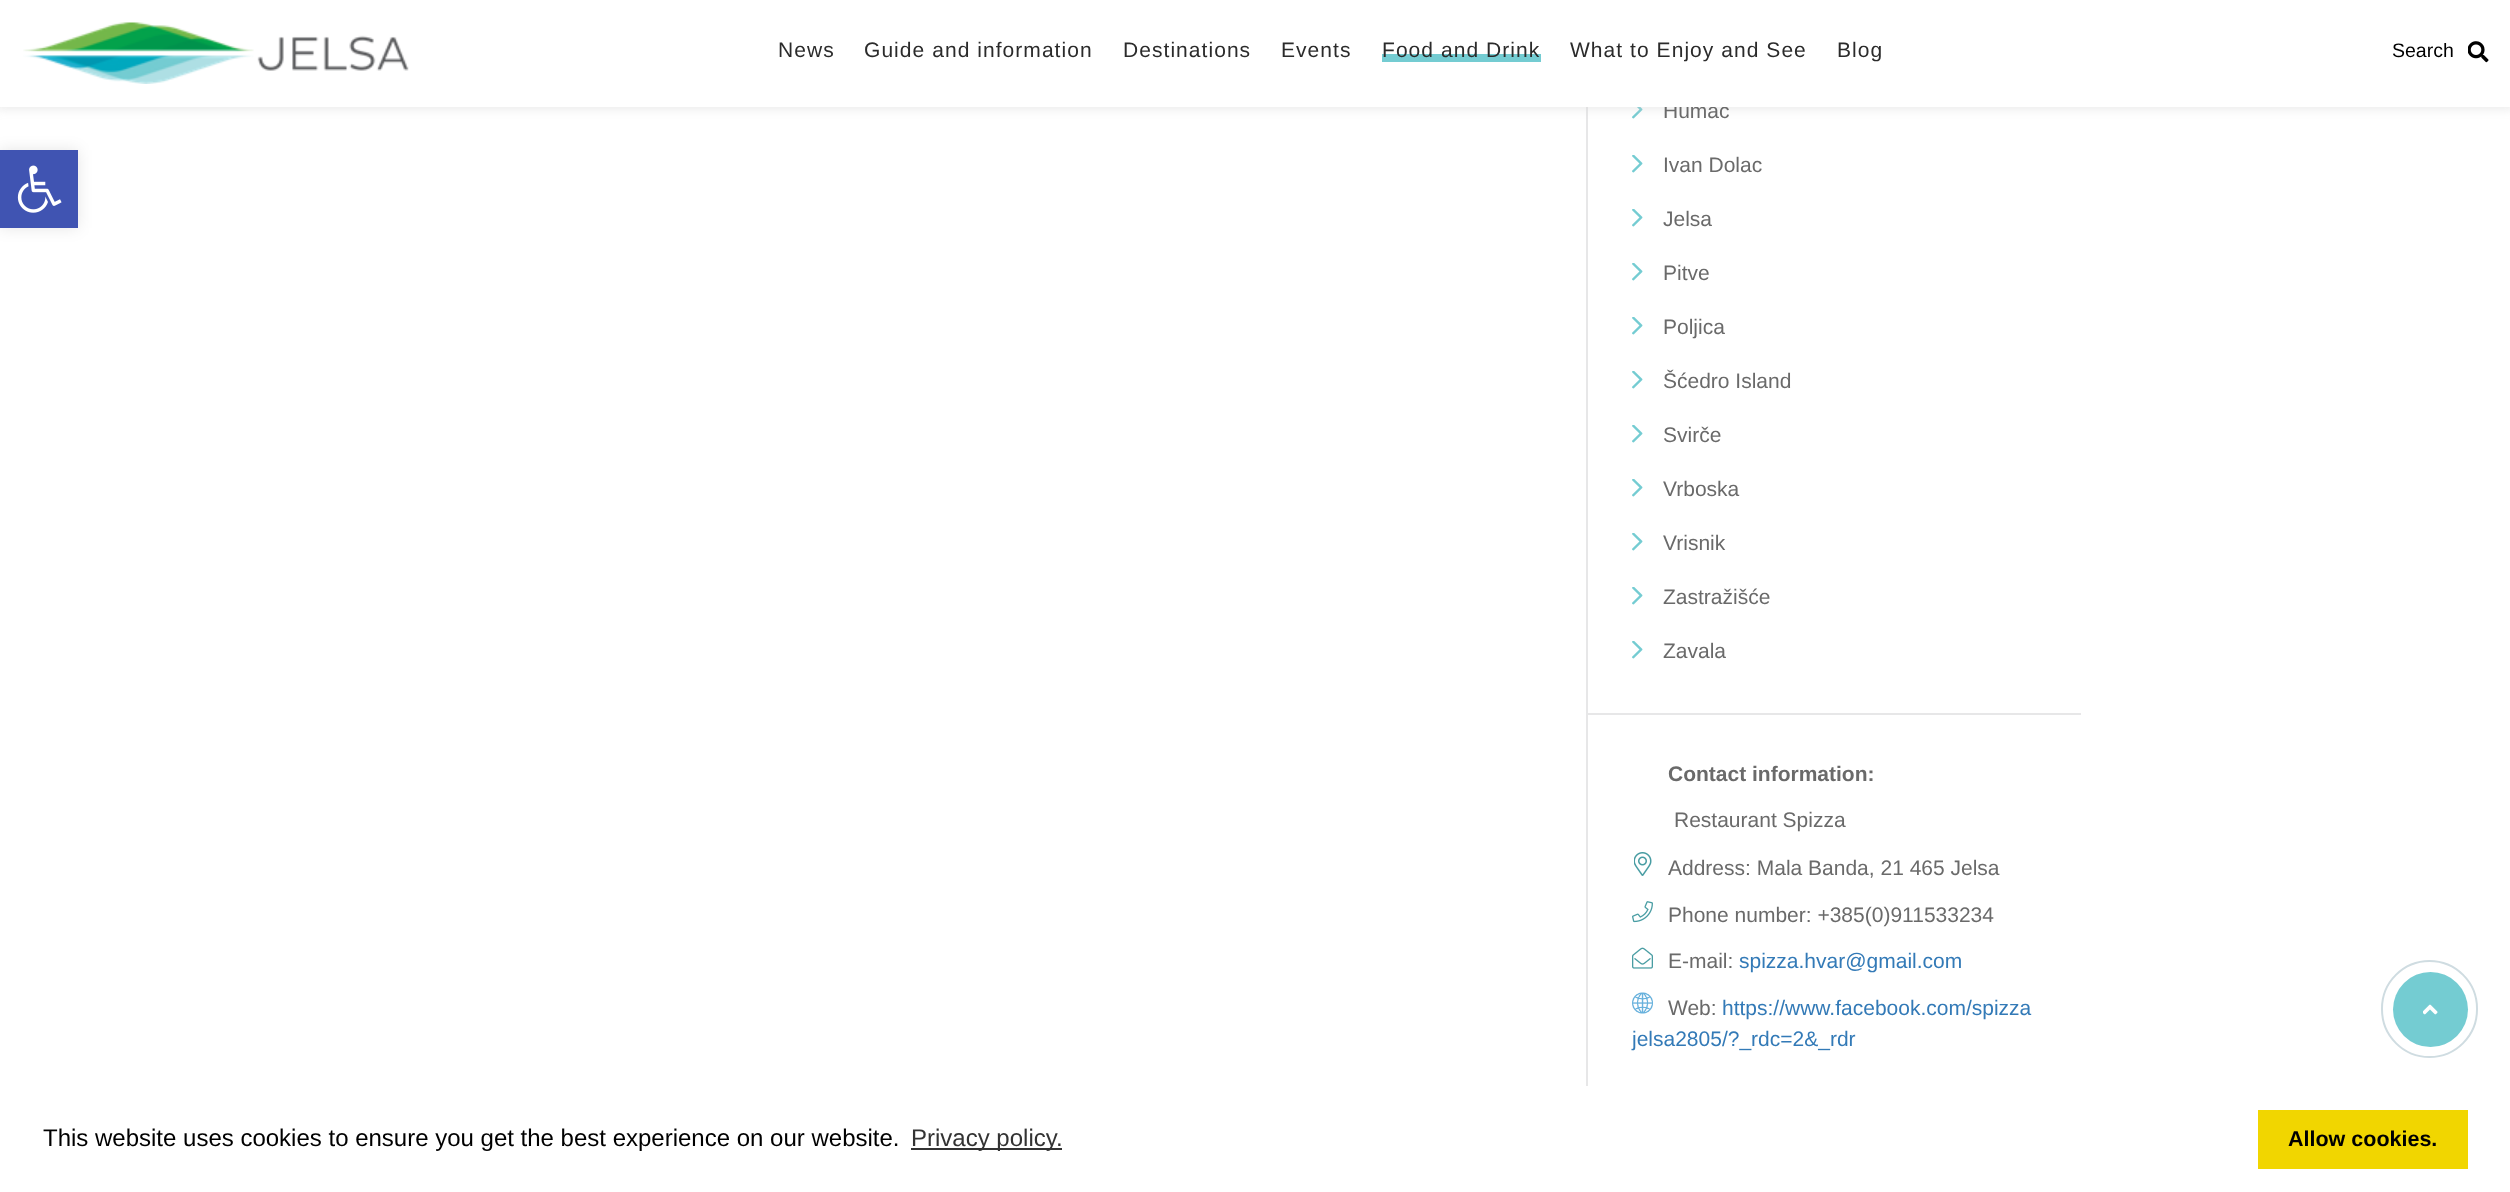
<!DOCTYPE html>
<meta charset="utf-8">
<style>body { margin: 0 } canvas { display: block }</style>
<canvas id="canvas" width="2510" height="1192"></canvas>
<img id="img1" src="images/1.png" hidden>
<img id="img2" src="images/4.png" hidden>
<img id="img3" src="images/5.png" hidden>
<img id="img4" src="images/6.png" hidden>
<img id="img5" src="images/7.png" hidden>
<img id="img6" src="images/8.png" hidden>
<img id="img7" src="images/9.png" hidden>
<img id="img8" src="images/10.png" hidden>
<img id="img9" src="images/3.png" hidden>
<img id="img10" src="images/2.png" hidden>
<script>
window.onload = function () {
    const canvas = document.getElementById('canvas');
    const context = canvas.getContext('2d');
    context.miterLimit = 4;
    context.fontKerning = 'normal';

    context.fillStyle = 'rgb(255, 255, 255)';
    context.fillRect(0, 0, 2510, 1192);
    context.fillStyle = 'rgba(0, 0, 0, 0.1)';
    context.filter = 'blur(7.5px)';
    context.beginPath();
    context.rect(0, 150, 78, 78);
    context.fill();
    context.filter = 'none';
    context.fillStyle = 'rgb(64, 84, 178)';
    context.fillRect(0, 150, 78, 78);
    context.drawImage(document.getElementById('img1'), 17, 165, 45, 48);
    context.fillStyle = 'rgb(231, 231, 232)';
    context.fillRect(1586, 107, 2, 979);
    context.drawImage(document.getElementById('img2'), 1632, 107, 11, 12);
    context.fillStyle = 'rgba(209, 209, 209, 0.4)';
    context.filter = 'blur(4px)';
    context.beginPath();
    context.rect(-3, -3, 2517, 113);
    context.fill();
    context.filter = 'none';
    context.drawImage(document.getElementById('img3'), 1632, 155, 11, 18);
    context.drawImage(document.getElementById('img3'), 1632, 209, 11, 18);
    context.drawImage(document.getElementById('img3'), 1632, 263, 11, 18);
    context.drawImage(document.getElementById('img3'), 1632, 317, 11, 18);
    context.drawImage(document.getElementById('img3'), 1632, 371, 11, 18);
    context.drawImage(document.getElementById('img3'), 1632, 425, 11, 18);
    context.drawImage(document.getElementById('img3'), 1632, 479, 11, 18);
    context.drawImage(document.getElementById('img3'), 1632, 533, 11, 18);
    context.drawImage(document.getElementById('img3'), 1632, 587, 11, 18);
    context.drawImage(document.getElementById('img3'), 1632, 641, 11, 18);
    context.fillStyle = 'rgb(231, 231, 232)';
    context.fillRect(1587, 713, 494, 2);
    context.drawImage(document.getElementById('img4'), 1634, 852, 18, 24);
    context.drawImage(document.getElementById('img5'), 1632, 901, 21, 22);
    context.drawImage(document.getElementById('img6'), 1632, 947, 21, 22);
    context.drawImage(document.getElementById('img7'), 1632, 992, 21, 22);
    context.beginPath();
    context.roundRect(2382, 961, 95, 96, 47.5);
    context.strokeStyle = 'rgb(207, 220, 225)';
    context.lineWidth = 2;
    context.stroke();
    context.fillStyle = 'rgb(116, 204, 210)';
    context.beginPath();
    context.arc(2430.5, 1009.5, 37.5, 0, 2 * Math.PI);
    context.fill();
    context.drawImage(document.getElementById('img8'), 2423, 1004, 15, 11);
    context.fillStyle = 'rgb(51, 51, 51)';
    context.fillRect(911, 1148, 151, 2);
    context.fillStyle = 'rgb(241, 214, 0)';
    context.fillRect(2258, 1110, 210, 59);
    context.font = '21px Liberation Sans';
    context.fillStyle = 'rgb(106, 106, 106)';
    context.fillText('Humac', 1663, 118);
    context.fillStyle = 'rgb(255, 255, 255)';
    context.fillRect(0, 0, 2510, 107);
    context.letterSpacing = '1.05px';
    context.fillStyle = 'rgb(43, 43, 43)';
    context.fillText('Blog', 1837, 57);
    context.fillText('What to Enjoy and See', 1570, 57);
    context.fillStyle = 'rgb(116, 204, 210)';
    context.fillRect(1382, 54, 159, 8);
    context.fillStyle = 'rgb(43, 43, 43)';
    context.fillText('Food and Drink', 1382, 57);
    context.fillText('Events', 1281, 57);
    context.fillText('Destinations', 1123, 57);
    context.fillText('Guide and information', 864, 57);
    context.fillText('News', 778, 57);
    context.drawImage(document.getElementById('img9'), 2468, 41, 21, 22);
    context.letterSpacing = '0px';
    context.font = '19.5px Liberation Sans';
    context.fillStyle = 'rgb(0, 0, 0)';
    context.fillText('Search', 2392, 57);
    context.drawImage(document.getElementById('img10'), 23, 22, 386, 62);
    context.font = '21px Liberation Sans';
    context.fillStyle = 'rgb(106, 106, 106)';
    context.fillText('Ivan Dolac', 1663, 172);
    context.fillText('Jelsa', 1663, 226);
    context.fillText('Pitve', 1663, 280);
    context.fillText('Poljica', 1663, 334);
    context.fillText('Šćedro Island', 1663, 388);
    context.fillText('Svirče', 1663, 442);
    context.fillText('Vrboska', 1663, 496);
    context.fillText('Vrisnik', 1663, 550);
    context.fillText('Zastražišće', 1663, 604);
    context.fillText('Zavala', 1663, 658);
    context.font = 'bold 21px Liberation Sans';
    context.fillText('Contact information:', 1668, 781);
    context.font = '21px Liberation Sans';
    context.fillText('Restaurant Spizza', 1674, 827);
    context.fillText('Address: Mala Banda, 21 465 Jelsa', 1668, 875);
    context.fillText('Phone number: +385(0)911533234', 1668, 922);
    context.fillText('E-mail:', 1668, 968);
    context.fillStyle = 'rgb(51, 122, 183)';
    context.fillText('spizza.hvar@gmail.com', 1739, 968);
    context.fillStyle = 'rgb(106, 106, 106)';
    context.fillText('Web:', 1668, 1015);
    context.fillStyle = 'rgb(51, 122, 183)';
    context.fillText('https://www.facebook.com/spizza', 1722, 1015);
    context.fillText('jelsa2805/?_rdc=2&_rdr', 1632, 1046);
    context.font = '24px Liberation Sans';
    context.fillStyle = 'rgb(0, 0, 0)';
    context.fillText('This website uses cookies to ensure you get the best experience on our website.', 43, 1146);
    context.fillStyle = 'rgb(51, 51, 51)';
    context.fillText('Privacy policy.', 911, 1146);
    context.font = 'bold 21.5px Liberation Sans';
    context.fillStyle = 'rgb(0, 0, 0)';
    context.fillText('Allow cookies.', 2288, 1146);
};
</script>
